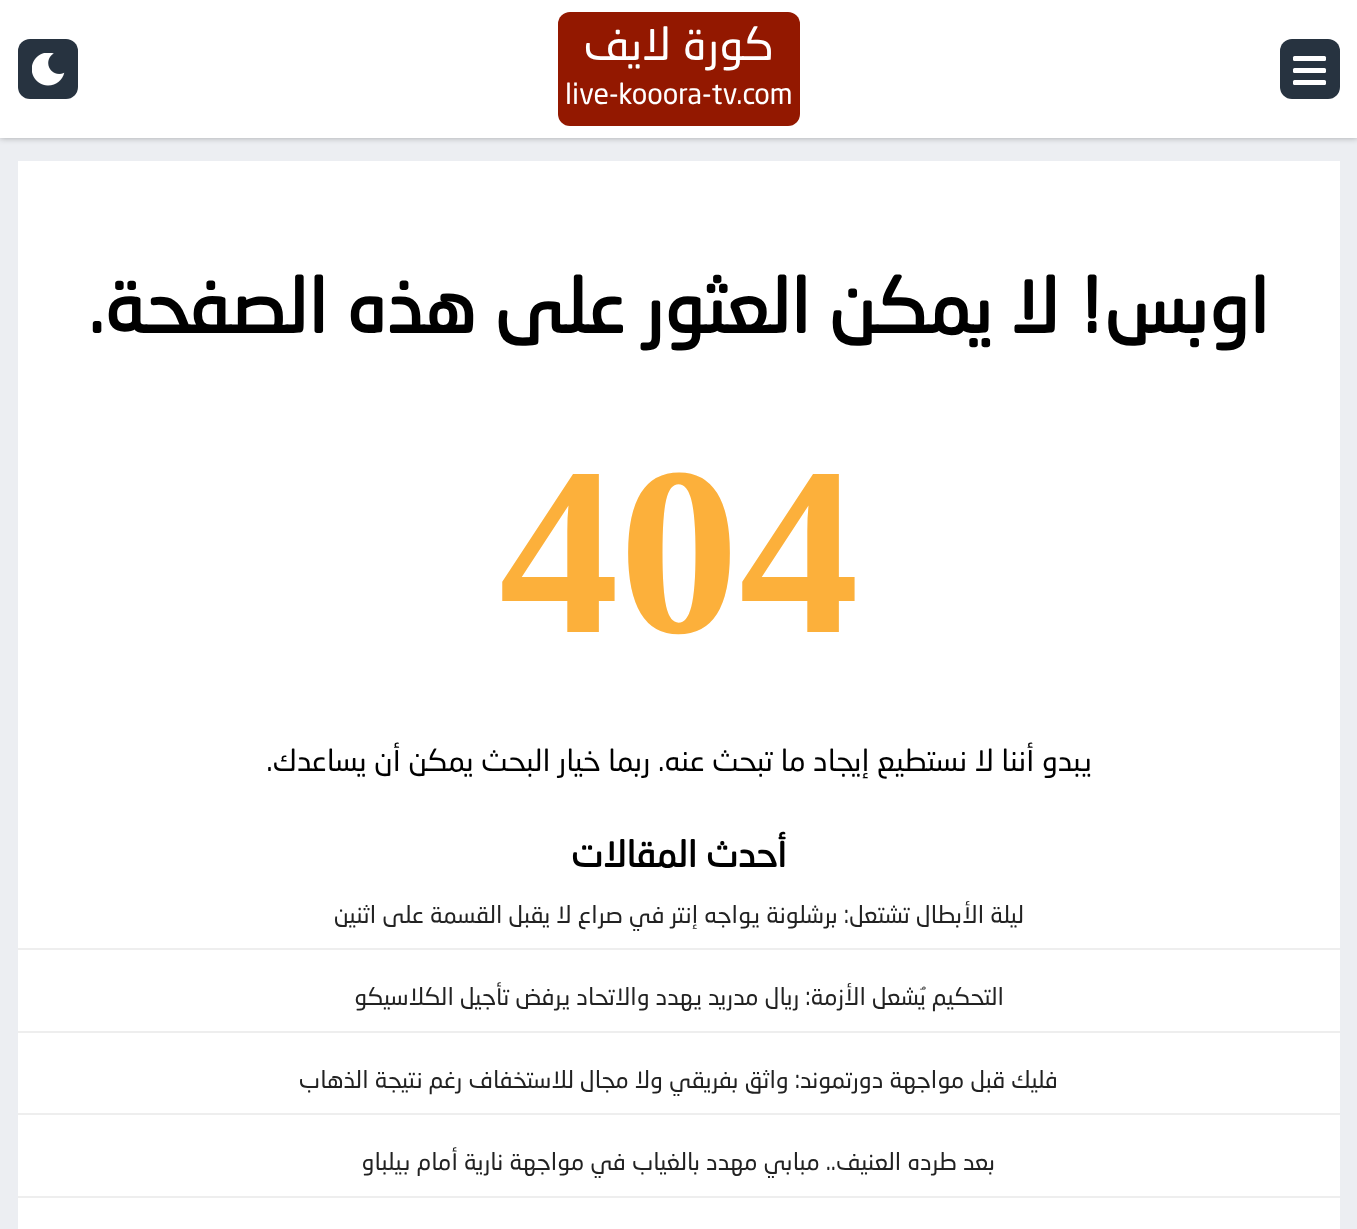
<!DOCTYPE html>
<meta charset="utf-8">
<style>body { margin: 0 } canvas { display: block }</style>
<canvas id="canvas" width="1357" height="1229"></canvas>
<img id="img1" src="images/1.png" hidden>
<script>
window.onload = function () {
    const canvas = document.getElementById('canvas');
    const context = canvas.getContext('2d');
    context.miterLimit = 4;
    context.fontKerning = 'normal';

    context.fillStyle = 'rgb(236, 238, 242)';
    context.fillRect(0, 0, 1357, 1229);
    context.fillStyle = 'rgba(0, 0, 0, 0.3)';
    context.filter = 'blur(3px)';
    context.beginPath();
    context.rect(0, 0, 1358, 138);
    context.fill();
    context.filter = 'none';
    context.fillStyle = 'rgb(255, 255, 255)';
    context.fillRect(0, 0, 1357, 138);
    context.fillStyle = 'rgb(39, 51, 64)';
    context.beginPath();
    context.roundRect(1280, 39, 60, 60, 12);
    context.fill();
    context.fillStyle = 'rgb(255, 255, 255)';
    context.beginPath();
    context.roundRect(1293, 56, 33, 5, 1.5);
    context.fill();
    context.beginPath();
    context.roundRect(1293, 68, 33, 5, 1.5);
    context.fill();
    context.beginPath();
    context.roundRect(1293, 80, 33, 5, 1.5);
    context.fill();
    context.fillStyle = 'rgb(147, 24, 0)';
    context.beginPath();
    context.roundRect(558, 12, 242, 114, 12);
    context.fill();
    context.fillStyle = 'rgb(39, 51, 64)';
    context.beginPath();
    context.roundRect(18, 39, 60, 60, 12);
    context.fill();
    context.drawImage(document.getElementById('img1'), 32, 53, 33, 33);
    context.fillStyle = 'rgb(255, 255, 255)';
    context.fillRect(18, 161, 1322, 1068);
    context.fillStyle = 'rgb(238, 238, 238)';
    context.fillRect(18, 948, 1322, 2);
    context.fillRect(18, 1031, 1322, 2);
    context.fillRect(18, 1113, 1322, 2);
    context.fillRect(18, 1196, 1322, 2);
    context.direction = 'rtl';
    context.font = '45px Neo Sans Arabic';
    context.fillStyle = 'rgb(255, 255, 255)';
    context.fillText('كورة لايف', 774, 60);
    context.direction = 'ltr';
    context.font = '28.5px Neo Sans Arabic';
    context.fillText('live-kooora-tv.com', 565, 104);
    context.direction = 'rtl';
    context.font = 'bold 75px Neo Sans Arabic';
    context.fillStyle = 'rgb(0, 0, 0)';
    context.fillText('اوبس! لا يمكن العثور على هذه الصفحة.', 1269, 333);
    context.direction = 'ltr';
    context.font = 'bold 240px Liberation Serif';
    context.fillStyle = 'rgb(252, 176, 59)';
    context.fillText('404', 499, 632);
    context.direction = 'rtl';
    context.font = '30px Neo Sans Arabic';
    context.fillStyle = 'rgb(0, 0, 0)';
    context.fillText('يبدو أننا لا نستطيع إيجاد ما تبحث عنه. ربما خيار البحث يمكن أن يساعدك.', 1092, 771);
    context.font = 'bold 36px Neo Sans Arabic';
    context.fillText('أحدث المقالات', 787, 867);
    context.font = '24px Neo Sans Arabic';
    context.fillStyle = 'rgb(34, 34, 34)';
    context.fillText('ليلة الأبطال تشتعل: برشلونة يواجه إنتر في صراع لا يقبل القسمة على اثنين', 1024, 923);
    context.fillText('التحكيم يُشعل الأزمة: ريال مدريد يهدد والاتحاد يرفض تأجيل الكلاسيكو', 1004, 1005);
    context.fillText('فليك قبل مواجهة دورتموند: واثق بفريقي ولا مجال للاستخفاف رغم نتيجة الذهاب', 1058, 1088);
    context.fillText('بعد طرده العنيف.. مبابي مهدد بالغياب في مواجهة نارية أمام بيلباو', 995, 1170);
};
</script>
